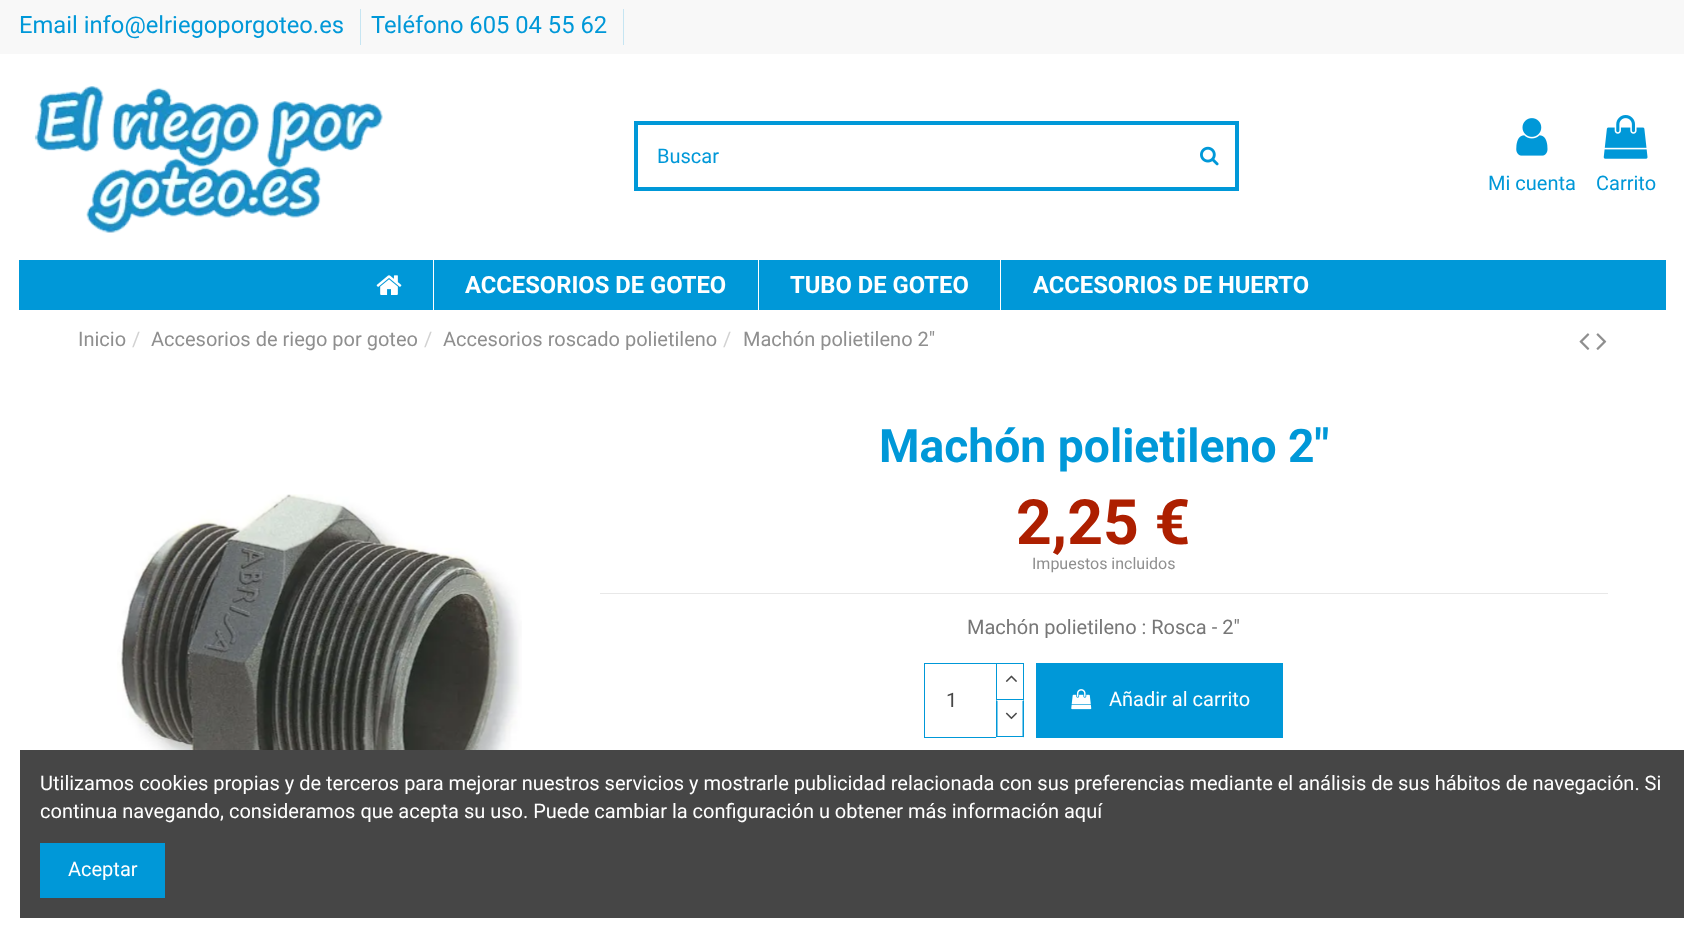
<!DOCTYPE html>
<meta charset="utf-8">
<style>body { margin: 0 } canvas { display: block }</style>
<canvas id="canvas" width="1684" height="937"></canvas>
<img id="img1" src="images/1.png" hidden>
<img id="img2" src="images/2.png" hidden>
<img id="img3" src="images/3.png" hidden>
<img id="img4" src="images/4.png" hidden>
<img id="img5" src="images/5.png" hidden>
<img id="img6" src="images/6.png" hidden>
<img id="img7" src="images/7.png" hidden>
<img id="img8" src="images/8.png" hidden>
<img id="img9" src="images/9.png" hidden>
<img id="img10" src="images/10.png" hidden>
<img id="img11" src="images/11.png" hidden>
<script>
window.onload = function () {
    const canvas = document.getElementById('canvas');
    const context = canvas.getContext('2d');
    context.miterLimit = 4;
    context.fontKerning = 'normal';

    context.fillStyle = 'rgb(255, 255, 255)';
    context.fillRect(0, 0, 1684, 937);
    context.fillStyle = 'rgb(248, 248, 248)';
    context.fillRect(0, 0, 1684, 54);
    context.fillStyle = 'rgb(198, 229, 242)';
    context.fillRect(360, 9, 1, 36);
    context.fillRect(623, 9, 1, 36);
    context.drawImage(document.getElementById('img1'), 34, 86, 349, 147);
    context.strokeStyle = 'rgb(0, 152, 216)';
    context.lineWidth = 4;
    context.strokeRect(636, 123, 601, 66);
    context.drawImage(document.getElementById('img2'), 1200, 146, 19, 20);
    context.drawImage(document.getElementById('img3'), 1516, 118, 32, 38);
    context.drawImage(document.getElementById('img4'), 1603, 115, 45, 44);
    context.fillStyle = 'rgb(0, 152, 216)';
    context.fillRect(19, 260, 1647, 50);
    context.drawImage(document.getElementById('img5'), 376, 275, 26, 20);
    context.fillStyle = 'rgb(255, 255, 255)';
    context.fillRect(433, 260, 1, 50);
    context.fillRect(758, 260, 1, 50);
    context.fillRect(1000, 260, 1, 50);
    context.drawImage(document.getElementById('img6'), 1579, 333, 11, 17);
    context.drawImage(document.getElementById('img7'), 1596, 333, 11, 17);
    context.drawImage(document.getElementById('img8'), 117, 494, 405, 256);
    context.fillStyle = 'rgb(232, 232, 232)';
    context.fillRect(600, 593, 1008, 1);
    context.lineWidth = 1;
    context.strokeRect(924.5, 663.5, 73, 74);
    context.fillStyle = 'rgb(255, 255, 255)';
    context.fillRect(997, 664, 1, 35);
    context.strokeRect(996.5, 663.5, 27, 36);
    context.drawImage(document.getElementById('img9'), 1005, 675, 12, 7);
    context.fillRect(996, 700, 2, 38);
    context.fillStyle = 'rgb(0, 152, 216)';
    context.beginPath();
    context.moveTo(1024, 700);
    context.lineTo(1024, 737.5);
    context.lineTo(1022.5, 736);
    context.lineTo(1022.5, 701);
    context.closePath();
    context.fill();
    context.fillRect(996, 736, 28, 1);
    context.beginPath();
    context.moveTo(996, 737.5);
    context.lineTo(996, 700);
    context.lineTo(997.5, 701);
    context.lineTo(997.5, 736);
    context.closePath();
    context.fill();
    context.drawImage(document.getElementById('img10'), 1005, 712, 12, 8);
    context.fillRect(1036, 663, 247, 75);
    context.drawImage(document.getElementById('img11'), 1071, 689, 21, 21);
    context.fillStyle = 'rgb(70, 70, 70)';
    context.fillRect(20, 750, 1664, 168);
    context.fillStyle = 'rgb(0, 152, 216)';
    context.fillRect(40, 843, 125, 55);
    context.font = '23.75px Roboto';
    context.fillText('Email info@elriegoporgoteo.es', 19, 33);
    context.fillText('Teléfono 605 04 55 62', 371, 33);
    context.font = '20px Roboto';
    context.fillText('Buscar', 657, 163);
    context.fillText('Mi cuenta', 1488, 190);
    context.fillText('Carrito', 1596, 190);
    context.font = 'bold 23.75px Roboto';
    context.fillStyle = 'rgb(255, 255, 255)';
    context.fillText('ACCESORIOS DE GOTEO', 465, 293);
    context.fillText('TUBO DE GOTEO', 790, 293);
    context.fillText('ACCESORIOS DE HUERTO', 1033, 293);
    context.font = '20px Roboto';
    context.fillStyle = 'rgb(143, 143, 143)';
    context.fillText('Inicio', 78, 346);
    context.fillStyle = 'rgb(210, 210, 210)';
    context.fillText('/', 132, 346);
    context.fillStyle = 'rgb(143, 143, 143)';
    context.fillText('Accesorios de riego por goteo', 151, 346);
    context.fillStyle = 'rgb(210, 210, 210)';
    context.fillText('/', 424, 346);
    context.fillStyle = 'rgb(143, 143, 143)';
    context.fillText('Accesorios roscado polietileno', 443, 346);
    context.fillStyle = 'rgb(210, 210, 210)';
    context.fillText('/', 723, 346);
    context.fillStyle = 'rgb(143, 143, 143)';
    context.fillText('Machón polietileno 2"', 743, 346);
    context.font = 'bold 46.25px Roboto';
    context.fillStyle = 'rgb(0, 152, 216)';
    context.fillText('Machón polietileno 2"', 879, 462);
    context.font = 'bold 62.5px Roboto';
    context.fillStyle = 'rgb(173, 31, 0)';
    context.fillText('2,25 €', 1016, 544);
    context.font = '16px Roboto';
    context.fillStyle = 'rgb(143, 143, 143)';
    context.fillText('Impuestos incluidos', 1032, 569);
    context.font = '20px Roboto';
    context.fillStyle = 'rgb(119, 119, 119)';
    context.fillText('Machón polietileno : Rosca - 2"', 967, 634);
    context.fillStyle = 'rgb(72, 72, 72)';
    context.fillText('1', 946, 707);
    context.fillStyle = 'rgb(255, 255, 255)';
    context.fillText('Añadir al carrito', 1109, 706);
    context.fillText('Utilizamos cookies propias y de terceros para mejorar nuestros servicios y mostrarle publicidad relacionada con sus preferencias mediante el análisis de sus hábitos de navegación. Si', 40, 790);
    context.fillText('continua navegando, consideramos que acepta su uso. Puede cambiar la configuración u obtener más información aquí', 40, 818);
    context.fillText('Aceptar', 68, 876);
};
</script>
